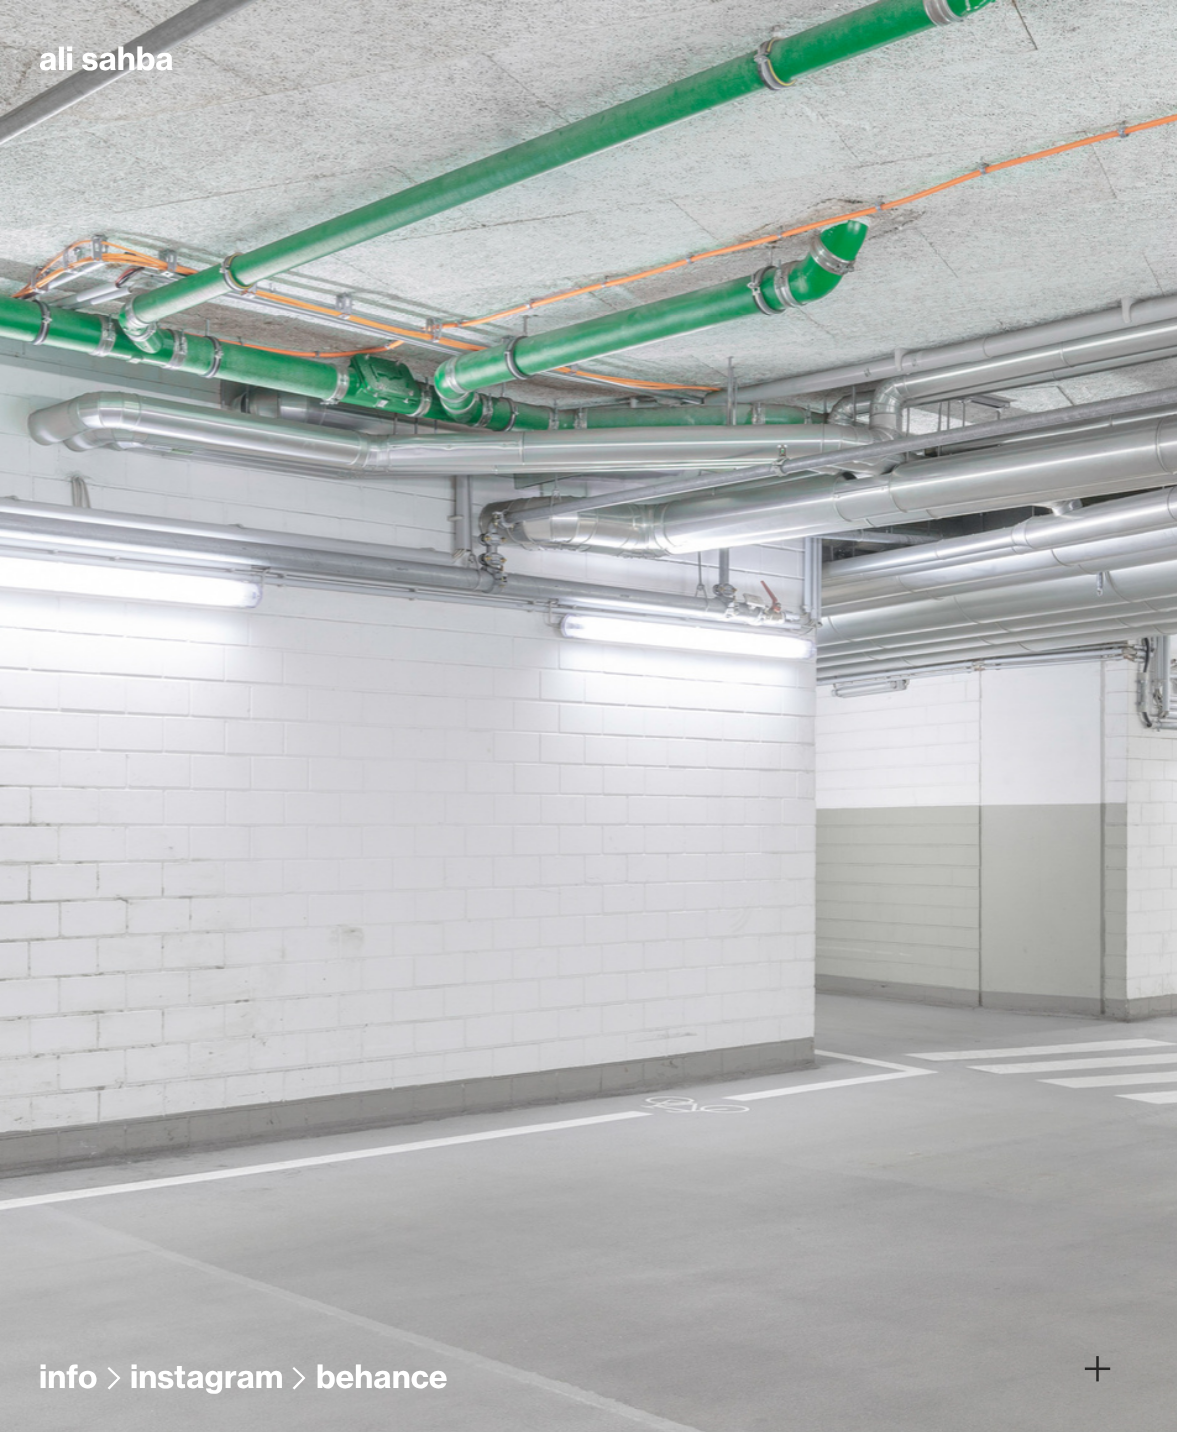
<!DOCTYPE html>
<meta charset="utf-8">
<style>body { margin: 0 } canvas { display: block }</style>
<canvas id="canvas" width="1177" height="1432"></canvas>
<img id="img1" src="images/1.png" hidden>
<img id="img2" src="images/2.png" hidden>
<script>
window.onload = function () {
    const canvas = document.getElementById('canvas');
    const context = canvas.getContext('2d');
    context.miterLimit = 4;
    context.fontKerning = 'normal';

    context.fillStyle = 'rgb(255, 255, 255)';
    context.fillRect(0, 0, 1177, 1432);
    context.drawImage(document.getElementById('img1'), 0, 0, 1177, 1432);
    context.beginPath();
    context.moveTo(120.5, 1378);
    context.lineTo(109, 1367);
    context.lineTo(107.5, 1368.5);
    context.lineTo(117.5, 1378);
    context.lineTo(107.5, 1388);
    context.lineTo(109.5, 1389.5);
    context.closePath();
    context.fill();
    context.beginPath();
    context.moveTo(305.5, 1378);
    context.lineTo(294, 1367);
    context.lineTo(292.5, 1368.5);
    context.lineTo(302.5, 1378);
    context.lineTo(292.5, 1388);
    context.lineTo(294.5, 1389.5);
    context.closePath();
    context.fill();
    context.drawImage(document.getElementById('img2'), 1084, 1356, 27, 26);
    context.font = 'bold 31.5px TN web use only';
    context.fillText('ali sahba', 39, 70);
    context.fillText('info', 39, 1388);
    context.fillText('instagram', 130, 1388);
    context.fillText('behance', 316, 1388);
};
</script>
